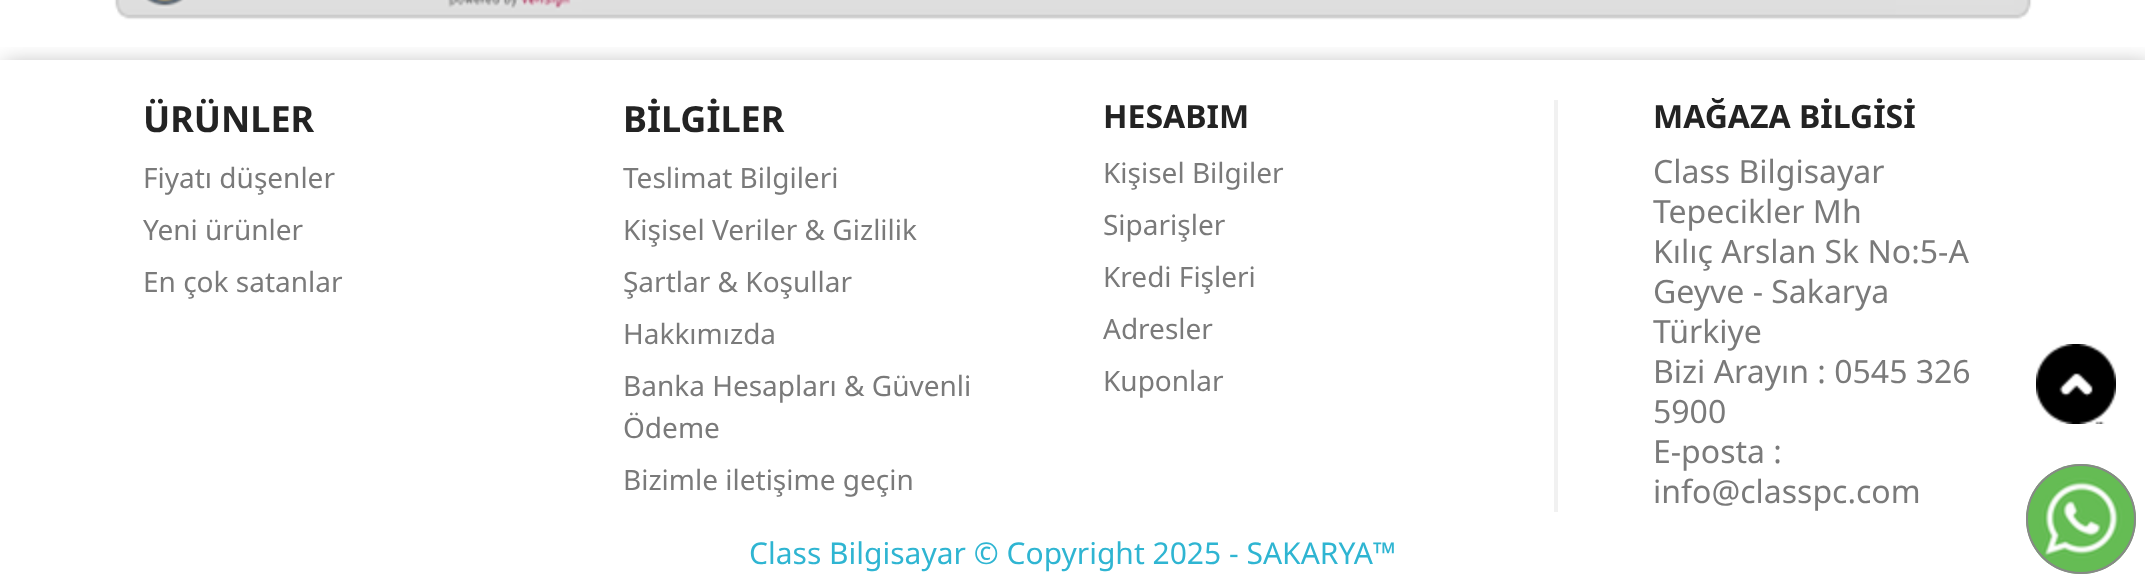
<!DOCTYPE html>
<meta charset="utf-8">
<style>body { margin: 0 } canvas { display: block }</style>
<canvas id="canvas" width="2145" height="583"></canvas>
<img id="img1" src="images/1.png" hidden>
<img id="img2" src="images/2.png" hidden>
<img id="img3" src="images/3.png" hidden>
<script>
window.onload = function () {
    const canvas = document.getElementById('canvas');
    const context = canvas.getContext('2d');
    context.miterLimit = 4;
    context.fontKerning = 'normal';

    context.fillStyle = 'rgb(255, 255, 255)';
    context.fillRect(0, 0, 2145, 583);
    context.drawImage(document.getElementById('img1'), 114, 0, 1918, 20);
    context.save();
    context.beginPath();
    context.rect(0, 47, 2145, 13);
    context.clip();
    context.fillStyle = 'rgba(0, 0, 0, 0.3)';
    context.filter = 'blur(11px)';
    context.beginPath();
    context.rect(4, 64, 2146, 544);
    context.fill();
    context.filter = 'none';
    context.restore();
    context.fillStyle = 'rgb(241, 241, 241)';
    context.fillRect(1554, 100, 4, 412);
    context.drawImage(document.getElementById('img2'), 2036, 344, 80, 80);
    context.fillStyle = 'rgb(101, 188, 84)';
    context.beginPath();
    context.arc(2081, 519, 55, 0, 2 * Math.PI);
    context.fill();
    context.drawImage(document.getElementById('img3'), 2036, 474, 90, 90);
    context.beginPath();
    context.arc(2081, 519, 54, 0, 2 * Math.PI);
    context.strokeStyle = 'rgb(136, 136, 136)';
    context.lineWidth = 2;
    context.stroke();
    context.font = 'bold 36px Noto Sans';
    context.fillStyle = 'rgb(35, 35, 35)';
    context.fillText('ÜRÜNLER', 143, 132);
    context.font = '28px Noto Sans';
    context.fillStyle = 'rgb(122, 122, 122)';
    context.fillText('Fiyatı düşenler', 143, 188);
    context.fillText('Yeni ürünler', 143, 240);
    context.fillText('En çok satanlar', 143, 292);
    context.font = 'bold 36px Noto Sans';
    context.fillStyle = 'rgb(35, 35, 35)';
    context.fillText('BİLGİLER', 623, 132);
    context.font = '28px Noto Sans';
    context.fillStyle = 'rgb(122, 122, 122)';
    context.fillText('Teslimat Bilgileri', 623, 188);
    context.fillText('Kişisel Veriler & Gizlilik', 623, 240);
    context.fillText('Şartlar & Koşullar', 623, 292);
    context.fillText('Hakkımızda', 623, 344);
    context.fillText('Banka Hesapları & Güvenli', 623, 396);
    context.fillText('Ödeme', 623, 438);
    context.fillText('Bizimle iletişime geçin', 623, 490);
    context.font = 'bold 32px Noto Sans';
    context.fillStyle = 'rgb(35, 35, 35)';
    context.fillText('HESABIM', 1103, 128);
    context.font = '28px Noto Sans';
    context.fillStyle = 'rgb(122, 122, 122)';
    context.fillText('Kişisel Bilgiler', 1103, 183);
    context.fillText('Siparişler', 1103, 235);
    context.fillText('Kredi Fişleri', 1103, 287);
    context.fillText('Adresler', 1103, 339);
    context.fillText('Kuponlar', 1103, 391);
    context.font = 'bold 32px Noto Sans';
    context.fillStyle = 'rgb(35, 35, 35)';
    context.fillText('MAĞAZA BİLGİSİ', 1653, 128);
    context.font = '32px Noto Sans';
    context.fillStyle = 'rgb(122, 122, 122)';
    context.fillText('Class Bilgisayar', 1653, 183);
    context.fillText('Tepecikler Mh', 1653, 223);
    context.fillText('Kılıç Arslan Sk No:5-A', 1653, 263);
    context.fillText('Geyve - Sakarya', 1653, 303);
    context.fillText('Türkiye', 1653, 343);
    context.fillText('Bizi Arayın : 0545 326', 1653, 383);
    context.fillText('5900', 1653, 423);
    context.fillText('E-posta :', 1653, 463);
    context.fillText('info@classpc.com', 1653, 503);
    context.font = '30px Noto Sans';
    context.fillStyle = 'rgb(47, 181, 210)';
    context.fillText('Class Bilgisayar © Copyright 2025 - SAKARYA™', 749, 564);
};
</script>
